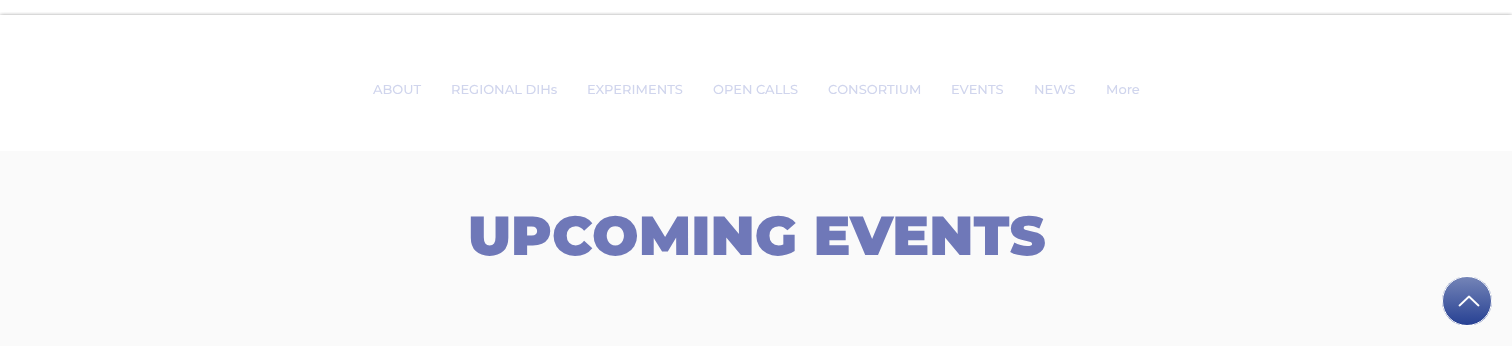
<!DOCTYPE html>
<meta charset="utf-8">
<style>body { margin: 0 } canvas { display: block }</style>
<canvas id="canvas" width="1512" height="346"></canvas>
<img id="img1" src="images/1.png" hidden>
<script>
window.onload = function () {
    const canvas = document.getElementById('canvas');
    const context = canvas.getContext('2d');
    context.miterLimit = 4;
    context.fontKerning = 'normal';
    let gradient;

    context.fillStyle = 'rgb(255, 255, 255)';
    context.fillRect(0, 0, 1512, 346);
    context.save();
    context.beginPath();
    context.rect(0, 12, 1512, 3);
    context.clip();
    context.fillStyle = 'rgba(0, 0, 0, 0.6)';
    context.filter = 'blur(2px)';
    context.beginPath();
    context.rect(0, 16, 1512, 136);
    context.fill();
    context.filter = 'none';
    context.restore();
    context.fillStyle = 'rgb(250, 250, 250)';
    context.fillRect(0, 151, 1512, 195);
    context.save();
    context.beginPath();
    context.roundRect(1442, 276, 50, 50, 25);
    context.clip();
    gradient = context.createLinearGradient(1467, 277, 1467, 325);
    gradient.addColorStop(0, 'rgb(116, 132, 183)');
    gradient.addColorStop(1, 'rgb(39, 65, 147)');
    context.fillStyle = gradient;
    context.fillRect(1442, 277, 50, 48);
    context.restore();
    context.beginPath();
    context.arc(1467, 301, 24.5, 0, 2 * Math.PI);
    context.strokeStyle = 'rgb(255, 255, 255)';
    context.stroke();
    context.drawImage(document.getElementById('img1'), 1458, 295, 22, 12);
    context.font = '500 13px Montserrat';
    context.fillStyle = 'rgb(208, 213, 237)';
    context.fillText('ABOUT', 373, 94);
    context.fillText('REGIONAL DIHs', 451, 94);
    context.fillText('EXPERIMENTS', 587, 94);
    context.fillText('OPEN CALLS', 713, 94);
    context.fillText('CONSORTIUM', 828, 94);
    context.fillText('EVENTS', 951, 94);
    context.fillText('NEWS', 1034, 94);
    context.fillText('More', 1106, 94);
    context.font = '900 55px Montserrat';
    context.fillStyle = 'rgb(111, 120, 184)';
    context.fillText('UPCOMING EVENTS', 468, 255);
};
</script>
